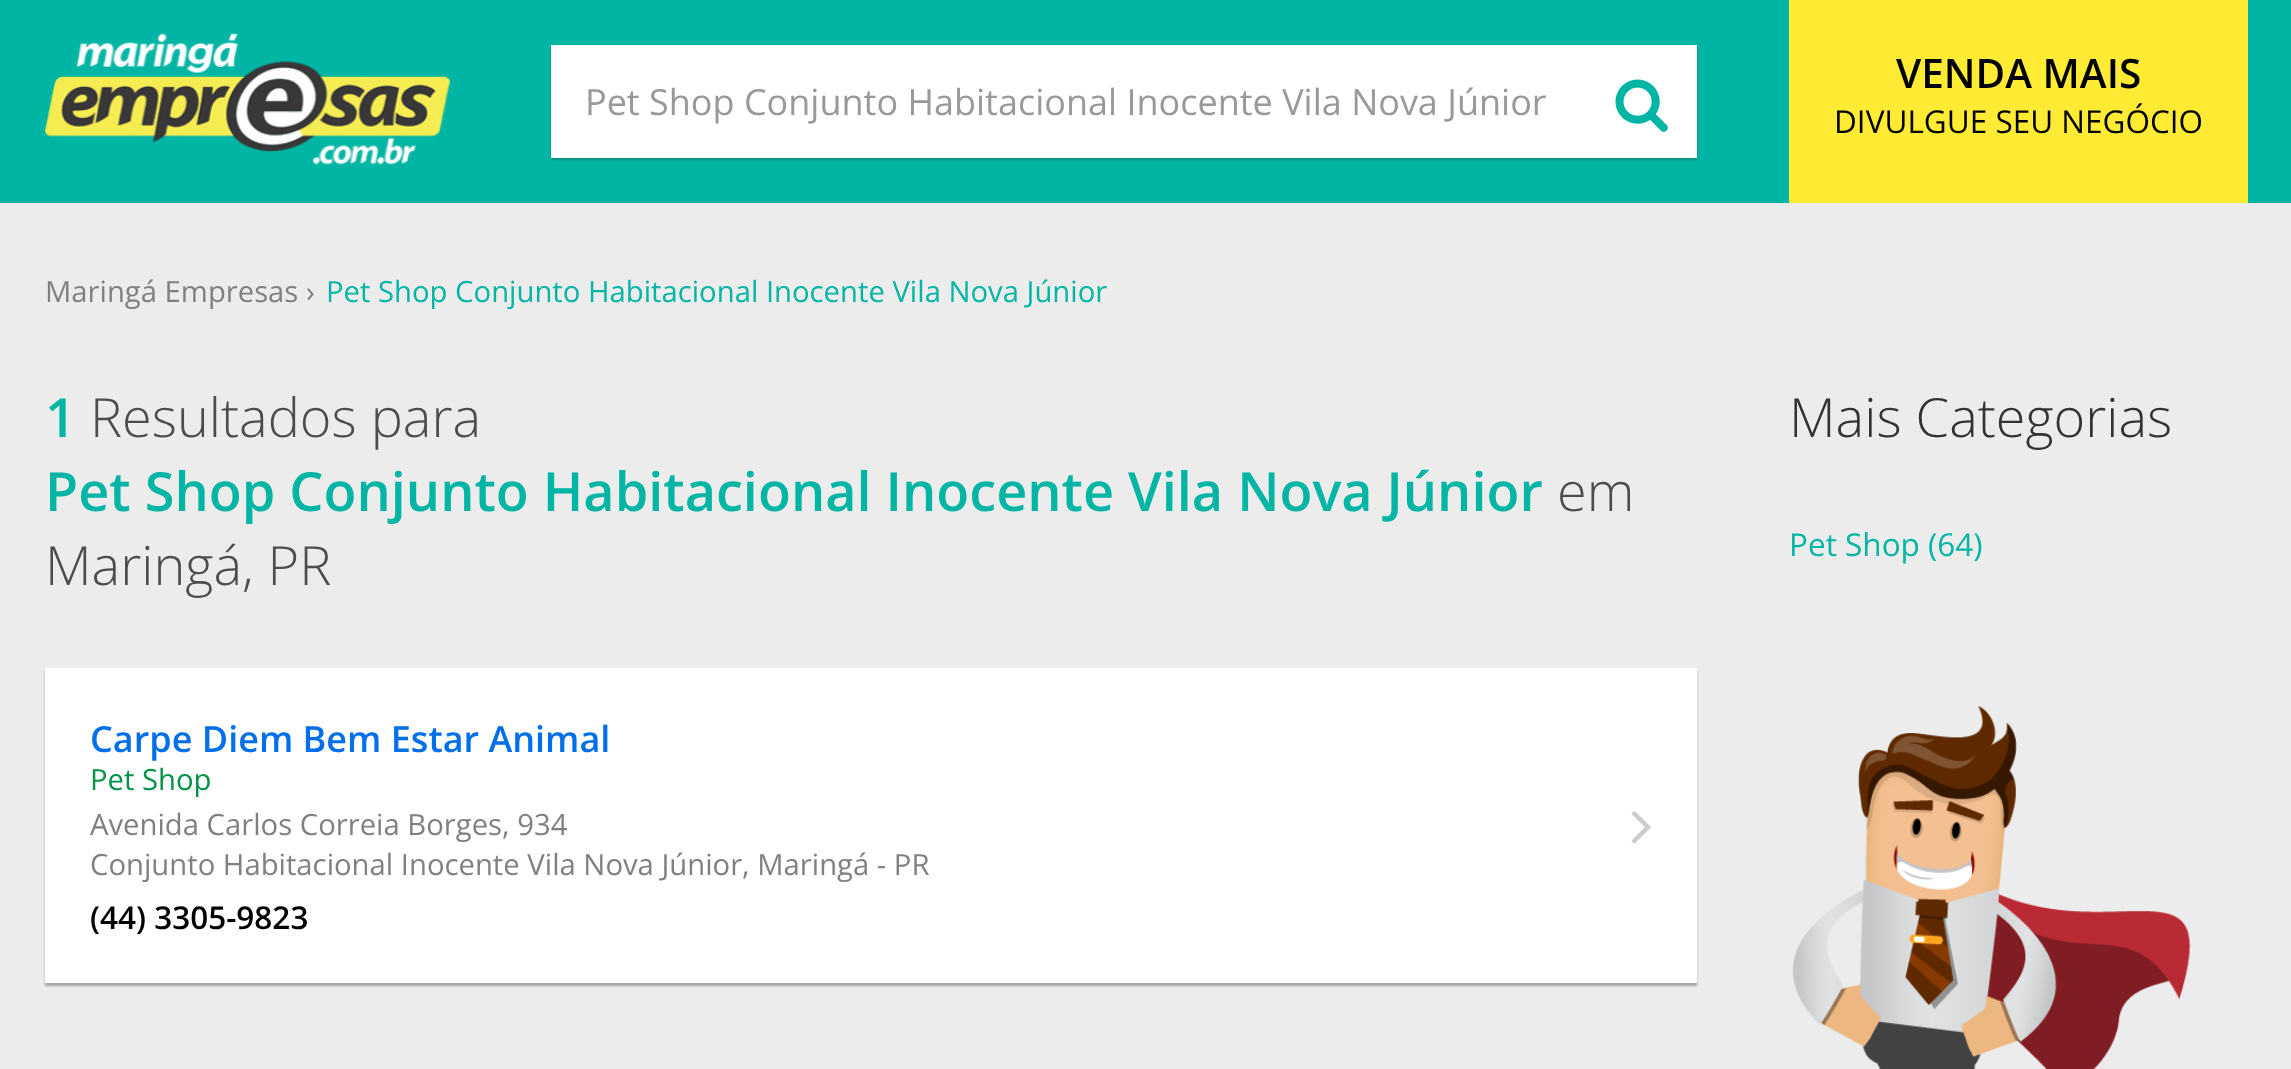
<!DOCTYPE html>
<meta charset="utf-8">
<style>body { margin: 0 } canvas { display: block }</style>
<canvas id="canvas" width="2291" height="1069"></canvas>
<img id="img1" src="images/1.png" hidden>
<img id="img2" src="images/2.png" hidden>
<img id="img3" src="images/3.png" hidden>
<img id="img4" src="images/4.png" hidden>
<script>
window.onload = function () {
    const canvas = document.getElementById('canvas');
    const context = canvas.getContext('2d');
    context.miterLimit = 4;
    context.fontKerning = 'normal';

    context.fillStyle = 'rgb(236, 236, 236)';
    context.fillRect(0, 0, 2291, 1069);
    context.fillStyle = 'rgb(0, 181, 163)';
    context.fillRect(0, 0, 2291, 203);
    context.drawImage(document.getElementById('img1'), 45, 33, 405, 132);
    context.fillStyle = 'rgba(0, 0, 0, 0.2)';
    context.filter = 'blur(1px)';
    context.beginPath();
    context.rect(551, 47, 1146, 113);
    context.fill();
    context.filter = 'none';
    context.fillStyle = 'rgb(255, 255, 255)';
    context.fillRect(551, 45, 1146, 113);
    context.drawImage(document.getElementById('img2'), 1615, 79, 53, 53);
    context.fillStyle = 'rgb(255, 235, 51)';
    context.fillRect(1789, 0, 459, 203);
    context.fillStyle = 'rgba(0, 0, 0, 0.3)';
    context.filter = 'blur(1px)';
    context.beginPath();
    context.rect(45, 671, 1652, 315);
    context.fill();
    context.filter = 'none';
    context.fillStyle = 'rgb(255, 255, 255)';
    context.fillRect(45, 668, 1652, 315);
    context.drawImage(document.getElementById('img3'), 1631, 811, 20, 33);
    context.drawImage(document.getElementById('img4'), 1792, 706, 399, 363);
    context.font = '36px Open Sans';
    context.fillStyle = 'rgb(153, 153, 153)';
    context.fillText('Pet Shop Conjunto Habitacional Inocente Vila Nova Júnior', 585, 115);
    context.font = '600 40.5px Open Sans';
    context.fillStyle = 'rgb(0, 0, 0)';
    context.fillText('VENDA MAIS', 1896, 88);
    context.font = '31.5px Open Sans';
    context.fillText('DIVULGUE SEU NEGÓCIO', 1834, 133);
    context.font = '29.25px Open Sans';
    context.fillStyle = 'rgb(128, 128, 128)';
    context.fillText('Maringá Empresas ›', 45, 302);
    context.fillStyle = 'rgb(0, 181, 163)';
    context.fillText('Pet Shop Conjunto Habitacional Inocente Vila Nova Júnior', 326, 302);
    context.font = '600 54px Open Sans';
    context.fillText('1', 45, 437);
    context.font = '300 54px Open Sans';
    context.fillStyle = 'rgb(77, 77, 77)';
    context.fillText('Resultados para', 90, 437);
    context.font = '600 54px Open Sans';
    context.fillStyle = 'rgb(0, 181, 163)';
    context.fillText('Pet Shop Conjunto Habitacional Inocente Vila Nova Júnior', 45, 511);
    context.font = '300 54px Open Sans';
    context.fillStyle = 'rgb(77, 77, 77)';
    context.fillText('em', 1557, 511);
    context.fillText('Maringá, PR', 45, 585);
    context.font = '600 36px Open Sans';
    context.fillStyle = 'rgb(0, 111, 233)';
    context.fillText('Carpe Diem Bem Estar Animal', 90, 752);
    context.font = '29.25px Open Sans';
    context.fillStyle = 'rgb(0, 146, 69)';
    context.fillText('Pet Shop', 90, 790);
    context.fillStyle = 'rgb(128, 128, 128)';
    context.fillText('Avenida Carlos Correia Borges, 934', 90, 835);
    context.fillText('Conjunto Habitacional Inocente Vila Nova Júnior, Maringá - PR', 90, 875);
    context.font = '600 31.5px Open Sans';
    context.fillStyle = 'rgb(0, 0, 0)';
    context.fillText('(44) 3305-9823', 90, 929);
    context.font = '300 54px Open Sans';
    context.fillStyle = 'rgb(51, 51, 51)';
    context.fillText('Mais Categorias', 1789, 437);
    context.font = '31.5px Open Sans';
    context.fillStyle = 'rgb(0, 181, 163)';
    context.fillText('Pet Shop (64)', 1789, 556);
};
</script>
